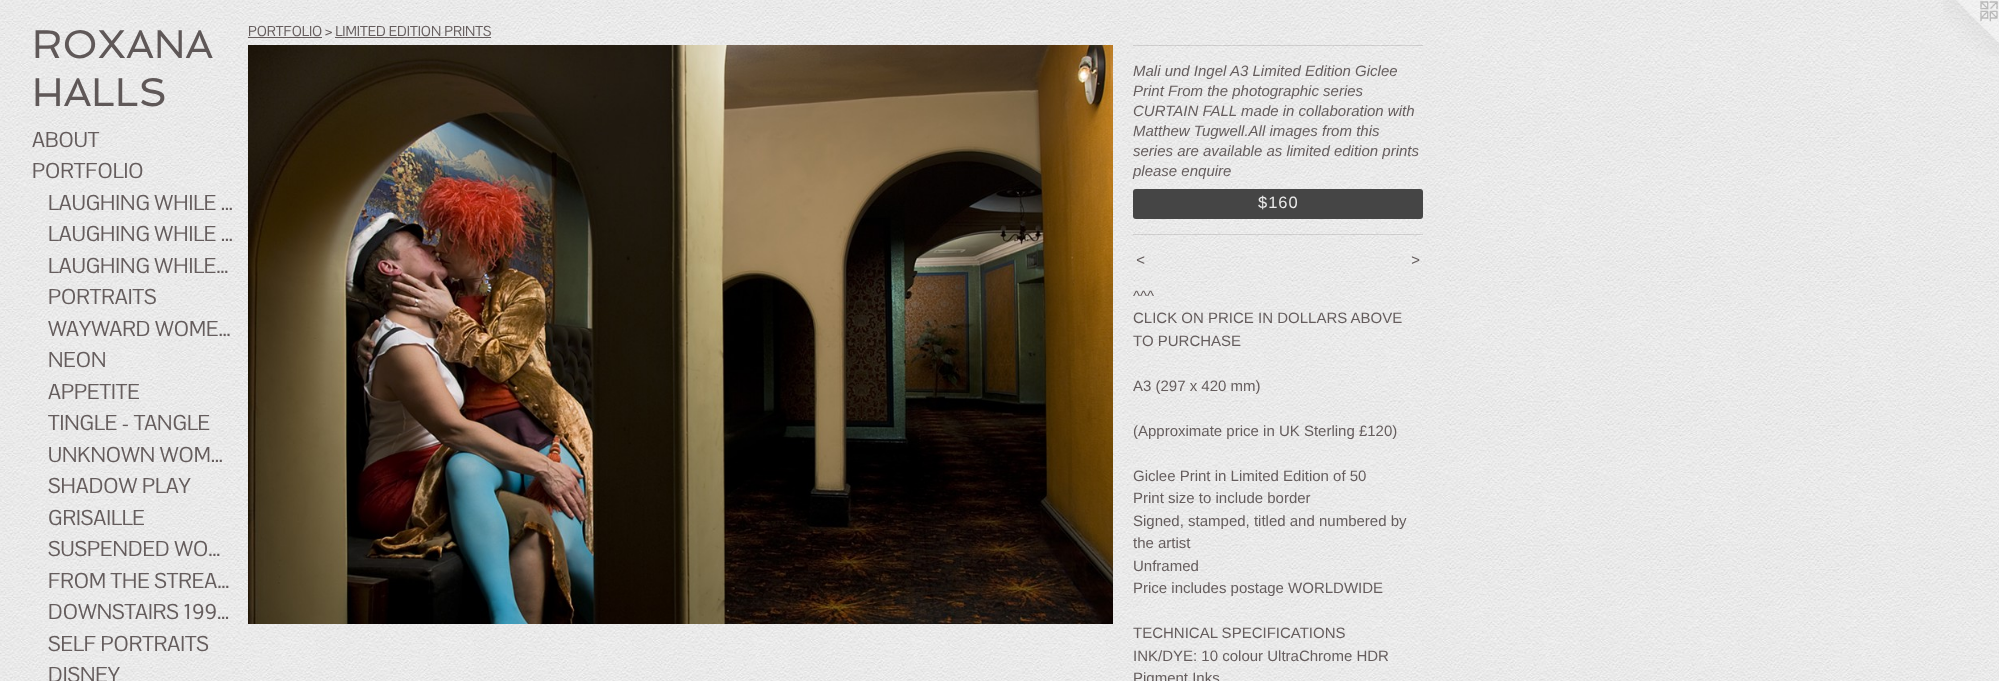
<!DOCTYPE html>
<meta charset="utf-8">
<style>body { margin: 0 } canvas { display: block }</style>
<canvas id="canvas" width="1999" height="681"></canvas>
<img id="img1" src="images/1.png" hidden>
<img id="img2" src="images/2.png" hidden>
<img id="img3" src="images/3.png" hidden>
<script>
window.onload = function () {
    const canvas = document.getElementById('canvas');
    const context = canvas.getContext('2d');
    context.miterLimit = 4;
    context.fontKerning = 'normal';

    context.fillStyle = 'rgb(255, 255, 255)';
    context.fillRect(0, 0, 1999, 681);
    context.drawImage(document.getElementById('img1'), 0, 0, 1999, 681);
    context.fillStyle = 'rgb(101, 93, 93)';
    context.fillRect(248, 37, 74, 1);
    context.fillRect(335, 37, 156, 1);
    context.drawImage(document.getElementById('img2'), 248, 45, 865, 579);
    context.fillStyle = 'rgba(100, 94, 94, 0.2)';
    context.fillRect(1133, 45, 290, 1);
    context.fillStyle = 'rgb(69, 69, 69)';
    context.beginPath();
    context.roundRect(1133, 189, 290, 30, 3);
    context.fill();
    context.fillStyle = 'rgba(100, 94, 94, 0.2)';
    context.fillRect(1133, 234, 290, 1);
    context.drawImage(document.getElementById('img3'), 1943, 0, 56, 56);
    context.font = '40px Spinnaker';
    context.fillStyle = 'rgb(95, 88, 88)';
    context.fillText('ROXANA', 32, 58);
    context.fillText('HALLS', 32, 106);
    context.font = '21px Pontano Sans';
    context.fillStyle = 'rgb(101, 93, 93)';
    context.fillText('ABOUT', 32, 147);
    context.fillText('PORTFOLIO', 32, 178);
    context.fillText('LAUGHING WHILE …', 48, 210);
    context.fillText('LAUGHING WHILE …', 48, 241);
    context.fillText('LAUGHING WHILE…', 48, 273);
    context.fillText('PORTRAITS', 48, 304);
    context.fillText('WAYWARD WOME…', 48, 336);
    context.fillText('NEON', 48, 367);
    context.fillText('APPETITE', 48, 399);
    context.fillText('TINGLE - TANGLE', 48, 430);
    context.fillText('UNKNOWN WOM…', 48, 462);
    context.fillText('SHADOW PLAY', 48, 493);
    context.fillText('GRISAILLE', 48, 525);
    context.fillText('SUSPENDED WO…', 48, 556);
    context.fillText('FROM THE STREA…', 48, 588);
    context.fillText('DOWNSTAIRS 199…', 48, 619);
    context.fillText('SELF PORTRAITS', 48, 651);
    context.fillText('DISNEY', 48, 682);
    context.font = '14px Pontano Sans';
    context.fillText('PORTFOLIO > LIMITED EDITION PRINTS', 248, 36);
    context.font = 'italic 15px Liberation Sans';
    context.fillText('Mali und Ingel A3 Limited Edition Giclee', 1133, 76);
    context.fillText('Print From the photographic series', 1133, 96);
    context.fillText('CURTAIN FALL made in collaboration with', 1133, 116);
    context.fillText('Matthew Tugwell.All images from this', 1133, 136);
    context.fillText('series are available as limited edition prints', 1133, 156);
    context.fillText('please enquire', 1133, 176);
    context.letterSpacing = '1px';
    context.font = '16.5px Liberation Sans';
    context.fillStyle = 'rgb(234, 234, 234)';
    context.fillText('$160', 1258, 208);
    context.font = 'italic 15px Liberation Sans';
    context.fillStyle = 'rgb(101, 93, 93)';
    context.fillText('<', 1136, 265);
    context.fillText('>', 1411, 265);
    context.letterSpacing = '0px';
    context.font = '15px Liberation Sans';
    context.fillText('^^^', 1133, 301);
    context.fillText('CLICK ON PRICE IN DOLLARS ABOVE', 1133, 323);
    context.fillText('TO PURCHASE', 1133, 346);
    context.fillText('A3 (297 x 420 mm)', 1133, 391);
    context.fillText('(Approximate price in UK Sterling £120)', 1133, 436);
    context.fillText('Giclee Print in Limited Edition of 50', 1133, 481);
    context.fillText('Print size to include border', 1133, 503);
    context.fillText('Signed, stamped, titled and numbered by', 1133, 526);
    context.fillText('the artist', 1133, 548);
    context.fillText('Unframed', 1133, 571);
    context.fillText('Price includes postage WORLDWIDE', 1133, 593);
    context.fillText('TECHNICAL SPECIFICATIONS', 1133, 638);
    context.fillText('INK/DYE: 10 colour UltraChrome HDR', 1133, 661);
    context.fillText('Pigment Inks', 1133, 683);
};
</script>
